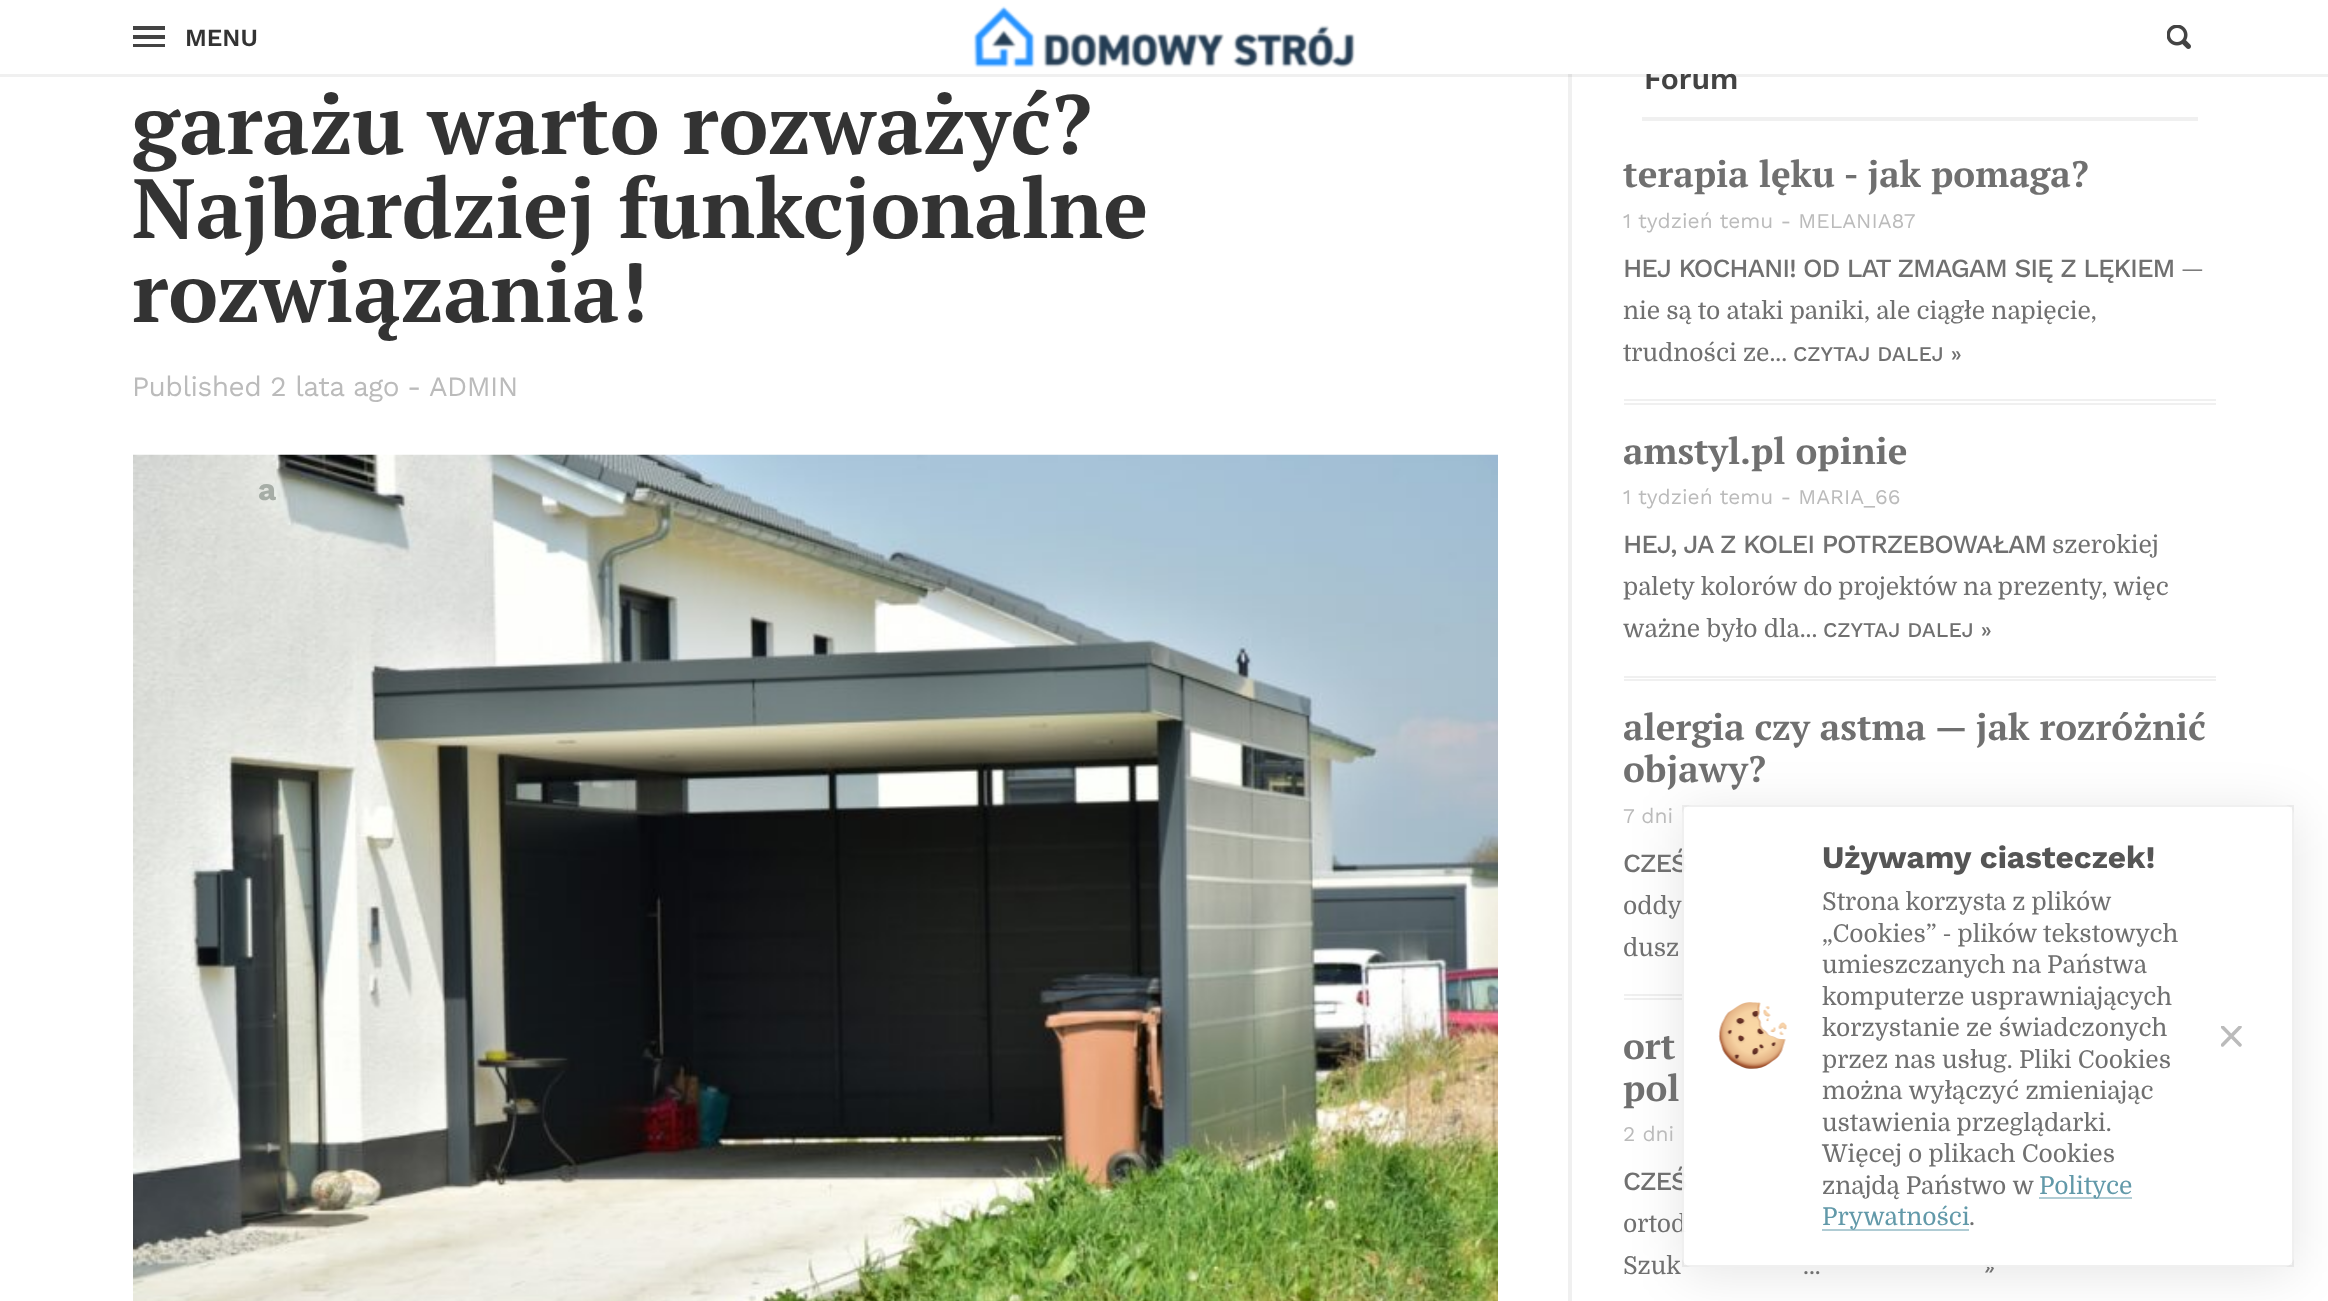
<!DOCTYPE html>
<meta charset="utf-8">
<style>body { margin: 0 } canvas { display: block }</style>
<canvas id="canvas" width="2328" height="1301"></canvas>
<img id="img1" src="images/1.png" hidden>
<img id="img2" src="images/2.png" hidden>
<img id="img3" src="images/3.png" hidden>
<img id="img4" src="images/4.png" hidden>
<script>
window.onload = function () {
    const canvas = document.getElementById('canvas');
    const context = canvas.getContext('2d');
    context.miterLimit = 4;
    context.fontKerning = 'normal';

    context.fillStyle = 'rgb(255, 255, 255)';
    context.fillRect(0, 0, 2328, 1301);
    context.fillStyle = 'rgb(240, 240, 240)';
    context.fillRect(1568, 74, 4, 1227);
    context.fillStyle = 'rgba(0, 0, 0, 0.06)';
    context.fillRect(0, 74, 2328, 3);
    context.fillStyle = 'rgb(67, 67, 67)';
    context.fillRect(133, 26, 32, 4);
    context.fillRect(133, 35, 32, 4);
    context.fillRect(133, 44, 32, 3);
    context.drawImage(document.getElementById('img1'), 973, 6, 382, 62);
    context.drawImage(document.getElementById('img2'), 2167, 25, 24, 24);
    context.drawImage(document.getElementById('img3'), 133, 454, 1365, 847);
    context.fillStyle = 'rgb(240, 240, 240)';
    context.fillRect(1642, 117, 556, 4);
    context.fillRect(1624, 399, 592, 2);
    context.fillRect(1624, 403, 592, 2);
    context.fillRect(1624, 676, 592, 2);
    context.fillRect(1624, 679, 592, 2);
    context.fillRect(1624, 994, 592, 2);
    context.fillRect(1624, 998, 592, 2);
    context.save();
    context.beginPath();
    context.moveTo(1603, 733);
    context.lineTo(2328, 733);
    context.lineTo(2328, 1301);
    context.lineTo(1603, 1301);
    context.closePath();
    context.moveTo(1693, 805);
    context.lineTo(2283, 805);
    context.bezierCurveTo(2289, 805, 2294, 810, 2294, 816);
    context.lineTo(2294, 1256);
    context.bezierCurveTo(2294, 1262, 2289, 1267, 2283, 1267);
    context.lineTo(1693, 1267);
    context.bezierCurveTo(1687, 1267, 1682, 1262, 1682, 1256);
    context.lineTo(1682, 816);
    context.bezierCurveTo(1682, 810, 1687, 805, 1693, 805);
    context.closePath();
    context.clip('evenodd');
    context.fillStyle = 'rgba(0, 0, 0, 0.1)';
    context.filter = 'blur(26px)';
    context.beginPath();
    context.roundRect(1682, 812, 612, 462, 11);
    context.fill();
    context.filter = 'none';
    context.restore();
    context.font = '600 24.5px Work Sans';
    context.fillStyle = 'rgb(51, 51, 51)';
    context.fillText('MENU', 185, 46);
    context.font = 'bold 84px PT Serif';
    context.fillText('garażu warto rozważyć?', 132, 154);
    context.fillText('Najbardziej funkcjonalne', 132, 238);
    context.fillText('rozwiązania!', 132, 322);
    context.letterSpacing = '-0.5px';
    context.font = '28px Work Sans';
    context.fillStyle = 'rgb(187, 187, 187)';
    context.fillText('Published 2 lata ago', 132, 396);
    context.fillText('-', 407, 396);
    context.fillText('ADMIN', 429, 396);
    context.letterSpacing = '0px';
    context.font = 'bold 31.5px Work Sans';
    context.fillStyle = 'rgb(166, 173, 166)';
    context.fillText('a', 258, 500);
    context.font = '600 30px Work Sans';
    context.fillStyle = 'rgb(67, 67, 67)';
    context.fillText('Forum', 1644, 89);
    context.fillStyle = 'rgb(255, 255, 255)';
    context.fillRect(1646, 69, 85, 5);
    context.font = 'bold 36.75px PT Serif';
    context.fillStyle = 'rgb(112, 112, 112)';
    context.fillText('terapia lęku - jak pomaga?', 1623, 187);
    context.font = '21px Work Sans';
    context.fillStyle = 'rgb(187, 187, 187)';
    context.fillText('1 tydzień temu - MELANIA87', 1623, 228);
    context.letterSpacing = '-1.05px';
    context.font = '500 26.25px Work Sans';
    context.fillStyle = 'rgb(112, 112, 112)';
    context.fillText('HEJ KOCHANI! OD LAT ZMAGAM SIĘ Z LĘKIEM', 1623, 277);
    context.letterSpacing = '0px';
    context.font = '24.5px Domine';
    context.fillText('—', 2181, 277);
    context.fillText('nie są to ataki paniki, ale ciągłe napięcie,', 1623, 319);
    context.fillText('trudności ze...', 1623, 361);
    context.font = '500 21px Work Sans';
    context.fillText('CZYTAJ DALEJ »', 1793, 361);
    context.font = 'bold 36.75px PT Serif';
    context.fillText('amstyl.pl opinie', 1623, 464);
    context.font = '21px Work Sans';
    context.fillStyle = 'rgb(187, 187, 187)';
    context.fillText('1 tydzień temu - MARIA_66', 1623, 504);
    context.letterSpacing = '-1.05px';
    context.font = '500 26.25px Work Sans';
    context.fillStyle = 'rgb(112, 112, 112)';
    context.fillText('HEJ, JA Z KOLEI POTRZEBOWAŁAM', 1623, 553);
    context.letterSpacing = '0px';
    context.font = '24.5px Domine';
    context.fillText('szerokiej', 2052, 553);
    context.wordSpacing = '-0.5px';
    context.fillText('palety kolorów do projektów na prezenty, więc', 1623, 595);
    context.wordSpacing = '0px';
    context.fillText('ważne było dla...', 1623, 637);
    context.font = '500 21px Work Sans';
    context.fillText('CZYTAJ DALEJ »', 1823, 637);
    context.font = 'bold 36.75px PT Serif';
    context.fillText('alergia czy astma — jak rozróżnić', 1623, 740);
    context.fillText('objawy?', 1623, 782);
    context.font = '21px Work Sans';
    context.fillStyle = 'rgb(187, 187, 187)';
    context.fillText('7 dni', 1623, 823);
    context.letterSpacing = '-1.05px';
    context.font = '500 26.25px Work Sans';
    context.fillStyle = 'rgb(112, 112, 112)';
    context.fillText('CZEŚ', 1623, 872);
    context.letterSpacing = '0px';
    context.font = '24.5px Domine';
    context.fillText('oddy', 1623, 914);
    context.fillText('dusz', 1623, 956);
    context.font = 'bold 36.75px PT Serif';
    context.fillText('ort', 1623, 1059);
    context.fillText('pol', 1623, 1101);
    context.font = '21px Work Sans';
    context.fillStyle = 'rgb(187, 187, 187)';
    context.fillText('2 dni', 1623, 1141);
    context.letterSpacing = '-1.05px';
    context.font = '500 26.25px Work Sans';
    context.fillStyle = 'rgb(112, 112, 112)';
    context.fillText('CZEŚ', 1623, 1190);
    context.letterSpacing = '0px';
    context.font = '24.5px Domine';
    context.fillText('ortod', 1623, 1232);
    context.fillText('Szuk', 1623, 1274);
    context.fillText('...', 1803, 1274);
    context.font = '500 21px Work Sans';
    context.fillText('»', 1984, 1274);
    context.fillStyle = 'rgba(255, 255, 255, 0.97)';
    context.beginPath();
    context.roundRect(1682, 805, 612, 462, 11);
    context.fill();
    context.strokeStyle = 'rgba(0, 0, 0, 0.06)';
    context.lineWidth = 2;
    context.strokeRect(1683, 806, 610, 460);
    context.font = 'bold 31.5px Work Sans';
    context.fillStyle = 'rgb(85, 85, 85)';
    context.fillText('Używamy ciasteczek!', 1822, 868);
    context.drawImage(document.getElementById('img4'), 1718, 1002, 69, 67);
    context.font = '24.5px Domine';
    context.fillStyle = 'rgb(112, 112, 112)';
    context.fillText('Strona korzysta z plików', 1822, 910);
    context.wordSpacing = '-0.5px';
    context.fillText('„Cookies” - plików tekstowych', 1822, 942);
    context.wordSpacing = '0px';
    context.fillText('umieszczanych na Państwa', 1822, 973);
    context.fillText('komputerze usprawniających', 1822, 1005);
    context.fillText('korzystanie ze świadczonych', 1822, 1036);
    context.fillText('przez nas usług. Pliki Cookies', 1822, 1068);
    context.fillText('można wyłączyć zmieniając', 1822, 1099);
    context.fillText('ustawienia przeglądarki.', 1822, 1131);
    context.fillText('Więcej o plikach Cookies', 1822, 1162);
    context.fillText('znajdą Państwo w', 1822, 1194);
    context.fillStyle = 'rgb(177, 204, 212)';
    context.fillRect(2039, 1197, 93, 2);
    context.fillStyle = 'rgb(98, 153, 169)';
    context.fillText('Polityce', 2039, 1194);
    context.fillStyle = 'rgba(98, 153, 169, 0.5)';
    context.fillRect(1822, 1229, 147, 2);
    context.fillStyle = 'rgb(98, 153, 169)';
    context.fillText('Prywatności', 1822, 1225);
    context.fillStyle = 'rgb(112, 112, 112)';
    context.fillText('.', 1969, 1225);
    context.save();
    context.beginPath();
    context.rect(2221, 1026, 21, 21);
    context.clip();
    context.beginPath();
    context.moveTo(2222.5, 1027);
    context.lineTo(2240, 1045);
    context.moveTo(2240, 1027);
    context.lineTo(2222.5, 1045);
    context.strokeStyle = 'rgb(187, 187, 187)';
    context.lineWidth = 3.5;
    context.lineCap = 'round';
    context.stroke();
    context.restore();
};
</script>
